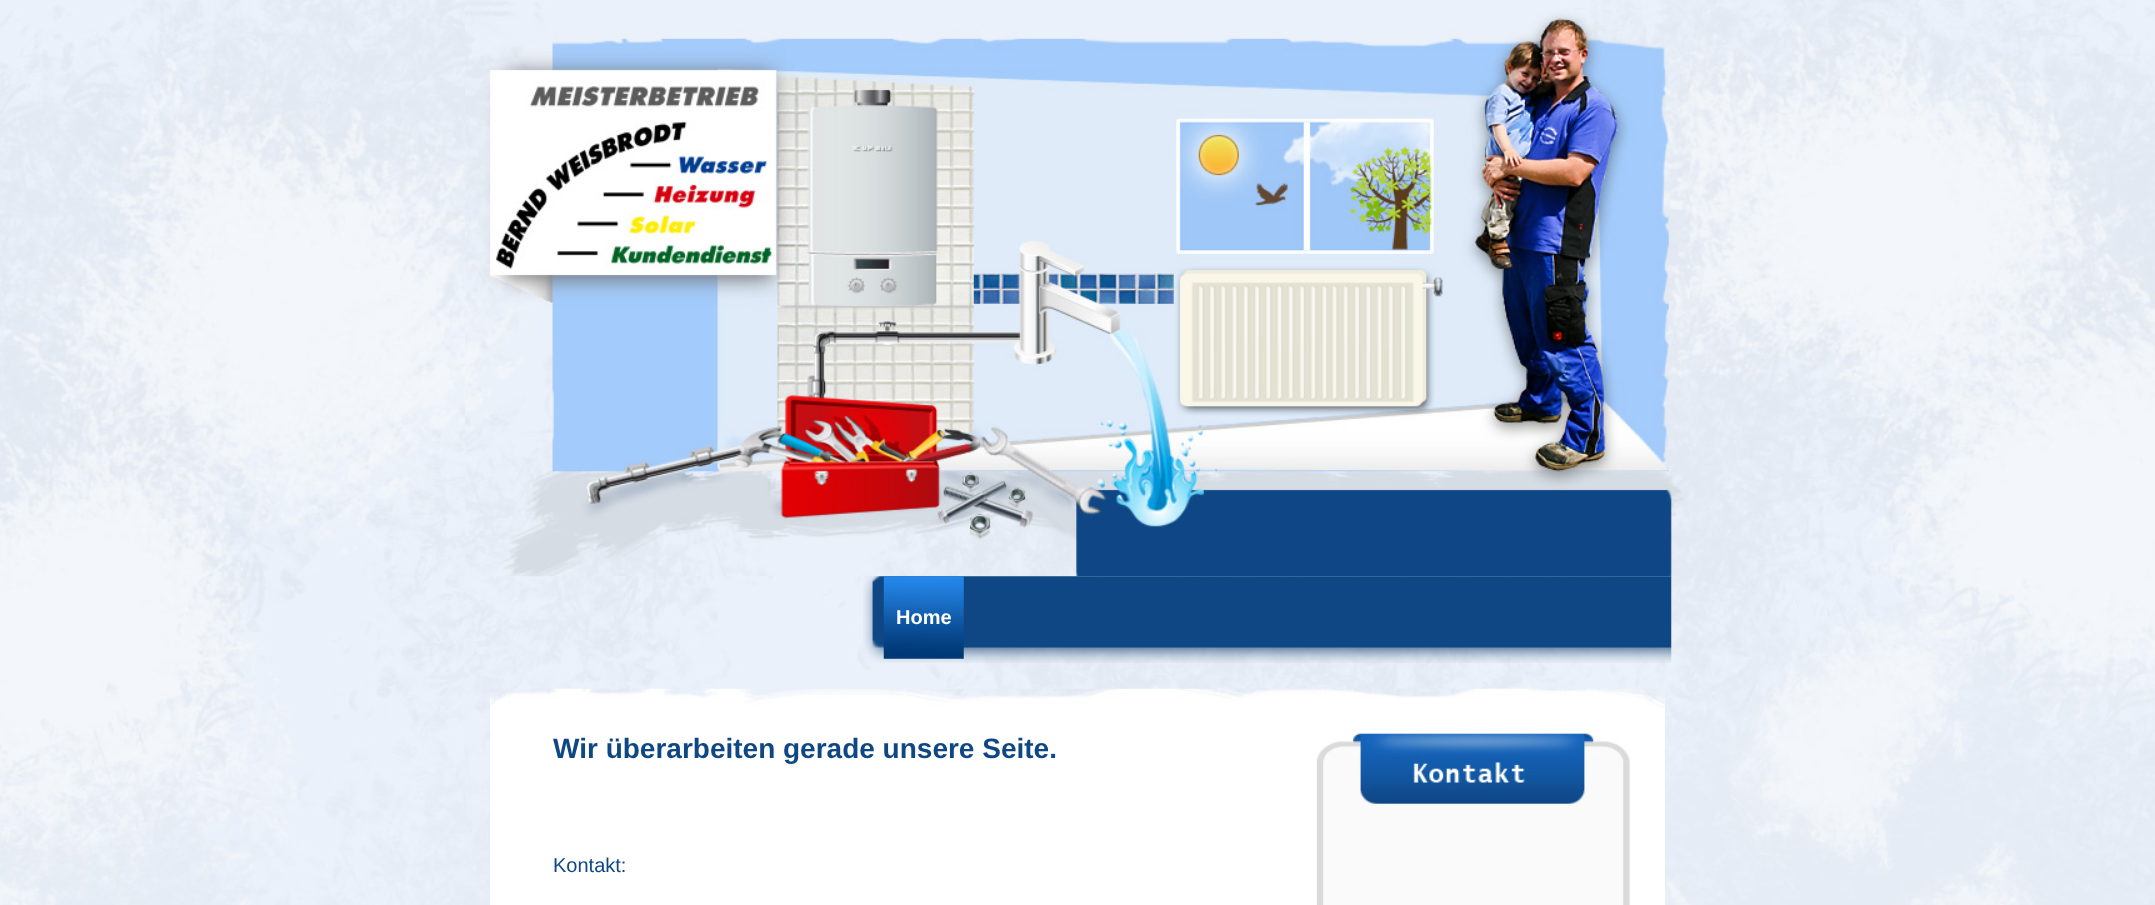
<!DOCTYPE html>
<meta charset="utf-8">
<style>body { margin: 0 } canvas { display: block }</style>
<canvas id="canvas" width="2155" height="905"></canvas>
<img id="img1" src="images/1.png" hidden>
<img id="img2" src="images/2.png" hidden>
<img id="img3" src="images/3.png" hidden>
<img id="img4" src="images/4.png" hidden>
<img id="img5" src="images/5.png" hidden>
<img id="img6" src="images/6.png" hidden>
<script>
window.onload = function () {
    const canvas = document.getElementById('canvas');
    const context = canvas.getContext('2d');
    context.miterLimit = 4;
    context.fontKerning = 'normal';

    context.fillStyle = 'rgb(255, 255, 255)';
    context.fillRect(0, 0, 2155, 905);
    context.drawImage(document.getElementById('img1'), 0, 0, 2155, 905);
    context.drawImage(document.getElementById('img2'), 465, 10, 1225, 567);
    context.drawImage(document.getElementById('img3'), 863, 576, 809, 87);
    context.drawImage(document.getElementById('img4'), 883, 576, 81, 83);
    context.fillRect(490, 708, 1175, 197);
    context.drawImage(document.getElementById('img5'), 490, 688, 1175, 20);
    context.drawImage(document.getElementById('img6'), 1316, 730, 315, 175);
    context.font = 'bold 20px Liberation Sans';
    context.fillText('Home', 896, 624);
    context.font = 'bold 28px Liberation Sans';
    context.fillStyle = 'rgb(15, 71, 133)';
    context.fillText('Wir überarbeiten gerade unsere Seite.', 553, 758);
    context.font = '20px Liberation Sans';
    context.fillText('Kontakt:', 553, 872);
};
</script>
